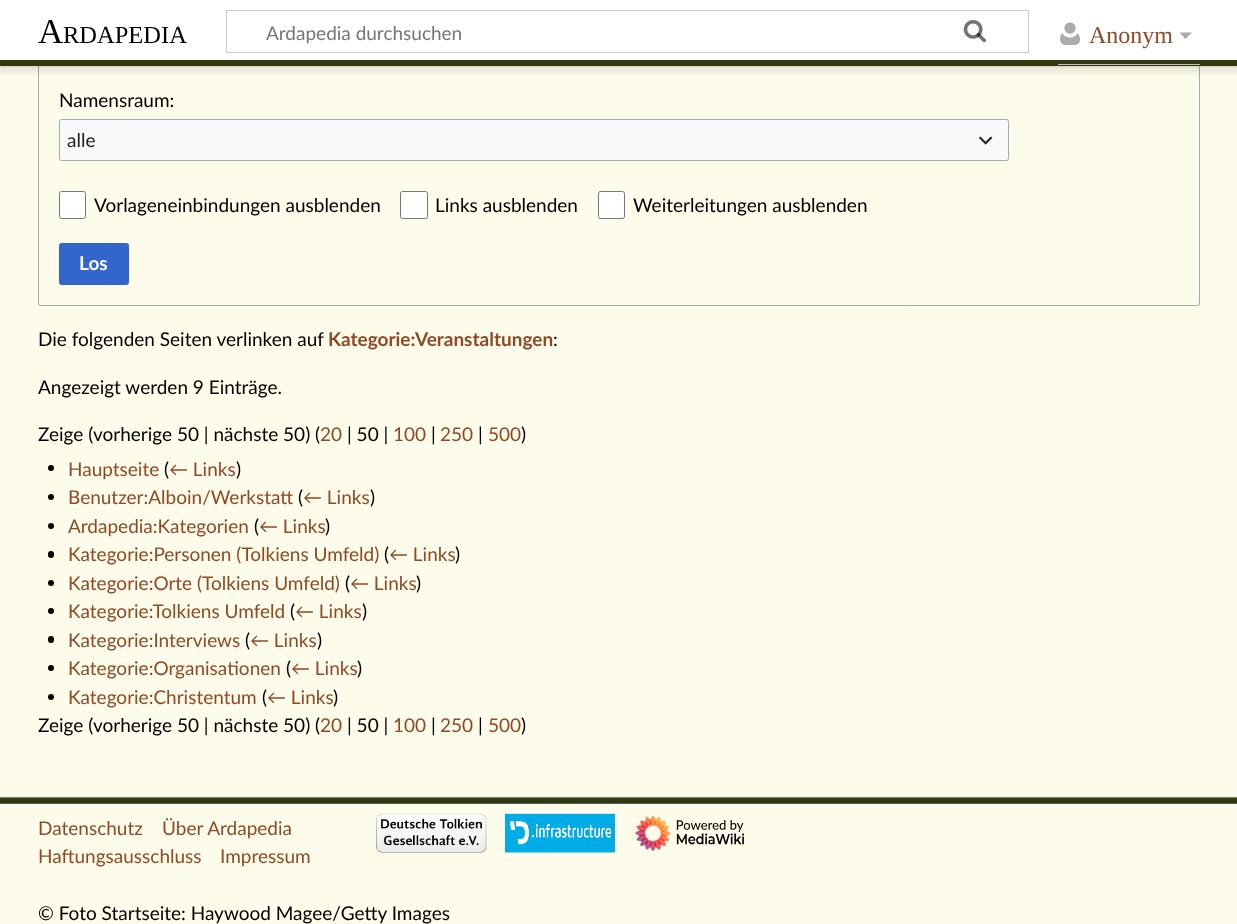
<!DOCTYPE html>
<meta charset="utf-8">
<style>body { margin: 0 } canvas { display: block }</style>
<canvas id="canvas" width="1237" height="924"></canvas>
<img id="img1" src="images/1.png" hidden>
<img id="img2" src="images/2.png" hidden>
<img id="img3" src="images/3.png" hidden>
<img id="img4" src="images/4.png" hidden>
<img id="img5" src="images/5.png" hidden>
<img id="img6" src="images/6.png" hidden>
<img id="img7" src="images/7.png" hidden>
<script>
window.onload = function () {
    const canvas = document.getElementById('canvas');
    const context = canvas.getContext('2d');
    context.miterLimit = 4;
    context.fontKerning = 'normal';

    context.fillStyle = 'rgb(253, 251, 234)';
    context.fillRect(0, 0, 1237, 924);
    context.beginPath();
    context.roundRect(38.5, -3.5, 1161, 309, 2);
    context.strokeStyle = 'rgb(162, 169, 177)';
    context.stroke();
    context.fillStyle = 'rgba(0, 0, 0, 0.2)';
    context.filter = 'blur(1px)';
    context.beginPath();
    context.rect(0, 60, 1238, 6);
    context.fill();
    context.filter = 'none';
    context.fillStyle = 'rgba(0, 0, 0, 0.07)';
    context.filter = 'blur(2px)';
    context.beginPath();
    context.rect(-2, 61, 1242, 12);
    context.fill();
    context.filter = 'none';
    context.fillStyle = 'rgb(255, 255, 255)';
    context.fillRect(0, 0, 1237, 60);
    context.strokeStyle = 'rgb(200, 204, 209)';
    context.strokeRect(226.5, 10.5, 802, 42);
    context.drawImage(document.getElementById('img1'), 963, 20, 23, 23);
    context.drawImage(document.getElementById('img2'), 963, 20, 23, 23);
    context.drawImage(document.getElementById('img3'), 1060, 22, 20, 23);
    context.fillStyle = 'rgb(51, 58, 15)';
    context.fillRect(0, 60, 1237, 6);
    context.fillStyle = 'rgb(192, 192, 192)';
    context.fillRect(1058, 64, 142, 1);
    context.fillStyle = 'rgb(171, 171, 171)';
    context.beginPath();
    context.moveTo(1192, 32.5);
    context.lineTo(1185.5, 39);
    context.lineTo(1179.5, 32.5);
    context.closePath();
    context.fill();
    context.fillStyle = 'rgb(133, 139, 98)';
    context.fillRect(0, 797, 1237, 1);
    context.fillStyle = 'rgb(51, 58, 15)';
    context.fillRect(0, 798, 1237, 5);
    context.fillStyle = 'rgb(234, 236, 240)';
    context.fillRect(0, 796, 1237, 1);
    context.fillStyle = 'rgb(248, 249, 250)';
    context.fillRect(59, 119, 950, 42);
    context.beginPath();
    context.roundRect(59.5, 119.5, 949, 41, 2);
    context.strokeStyle = 'rgb(162, 169, 177)';
    context.stroke();
    context.drawImage(document.getElementById('img4'), 979, 136, 14, 9);
    context.fillStyle = 'rgb(255, 255, 255)';
    context.beginPath();
    context.roundRect(59.5, 191.5, 26, 27, 2);
    context.fill();
    context.strokeStyle = 'rgb(114, 119, 125)';
    context.stroke();
    context.beginPath();
    context.roundRect(400.5, 191.5, 27, 27, 2);
    context.fill();
    context.stroke();
    context.beginPath();
    context.roundRect(598.5, 191.5, 26, 27, 2);
    context.fill();
    context.stroke();
    context.fillStyle = 'rgb(51, 102, 204)';
    context.beginPath();
    context.roundRect(59.5, 243.5, 69, 41, 2);
    context.fill();
    context.strokeStyle = 'rgb(51, 102, 204)';
    context.stroke();
    context.fillStyle = 'rgb(0, 0, 0)';
    context.beginPath();
    context.arc(51, 468, 3, 0, 2 * Math.PI);
    context.fill();
    context.beginPath();
    context.arc(51, 497, 3, 0, 2 * Math.PI);
    context.fill();
    context.beginPath();
    context.arc(51, 526, 3, 0, 2 * Math.PI);
    context.fill();
    context.beginPath();
    context.roundRect(48, 551, 6, 7, 3);
    context.fill();
    context.beginPath();
    context.arc(51, 583, 3, 0, 2 * Math.PI);
    context.fill();
    context.beginPath();
    context.arc(51, 611, 3, 0, 2 * Math.PI);
    context.fill();
    context.beginPath();
    context.roundRect(48, 636, 6, 7, 3);
    context.fill();
    context.beginPath();
    context.arc(51, 668, 3, 0, 2 * Math.PI);
    context.fill();
    context.beginPath();
    context.arc(51, 697, 3, 0, 2 * Math.PI);
    context.fill();
    context.fillStyle = 'rgb(84, 89, 93)';
    context.fillRect(0, 803, 1237, 1);
    context.drawImage(document.getElementById('img5'), 376, 813, 111, 40);
    context.drawImage(document.getElementById('img6'), 505, 813, 110, 40);
    context.drawImage(document.getElementById('img7'), 635, 815, 110, 37);
    context.font = '35px Liberation Serif';
    context.fillStyle = 'rgb(0, 0, 0)';
    context.fillText('A', 38, 43);
    context.font = '24.5px Liberation Serif';
    context.fillText('RDAPEDIA', 63, 43);
    context.font = '19px Lato';
    context.fillStyle = 'rgb(117, 117, 117)';
    context.fillText('Ardapedia durchsuchen', 266, 40);
    context.font = '24px Liberation Serif';
    context.fillStyle = 'rgb(142, 74, 37)';
    context.fillText('Anonym', 1089, 43);
    context.font = '19px Lato';
    context.fillStyle = 'rgb(0, 0, 0)';
    context.fillText('Namensraum:', 59, 107);
    context.fillStyle = 'rgb(32, 33, 34)';
    context.fillText('alle', 67, 147);
    context.fillStyle = 'rgb(0, 0, 0)';
    context.fillText('Vorlageneinbindungen ausblenden', 94, 212);
    context.fillText('Links ausblenden', 435, 212);
    context.fillText('Weiterleitungen ausblenden', 633, 212);
    context.font = 'bold 19px Lato';
    context.fillStyle = 'rgb(255, 255, 255)';
    context.fillText('Los', 79, 270);
    context.font = '19px Lato';
    context.fillStyle = 'rgb(0, 0, 0)';
    context.fillText('Die folgenden Seiten verlinken auf', 38, 346);
    context.font = 'bold 19px Lato';
    context.fillStyle = 'rgb(142, 74, 37)';
    context.fillText('Kategorie:Veranstaltungen', 328, 346);
    context.font = '19px Lato';
    context.fillStyle = 'rgb(0, 0, 0)';
    context.fillText(':', 553, 346);
    context.fillText('Angezeigt werden 9 Einträge.', 38, 394);
    context.fillText('Zeige (', 38, 441);
    context.fillText('vorherige 50 | nächste 50) (', 93, 441);
    context.fillStyle = 'rgb(142, 74, 37)';
    context.fillText('20', 320, 441);
    context.fillStyle = 'rgb(0, 0, 0)';
    context.fillText('| 50 |', 347, 441);
    context.fillStyle = 'rgb(142, 74, 37)';
    context.fillText('100', 393, 441);
    context.fillStyle = 'rgb(0, 0, 0)';
    context.fillText('|', 431, 441);
    context.fillStyle = 'rgb(142, 74, 37)';
    context.fillText('250', 440, 441);
    context.fillStyle = 'rgb(0, 0, 0)';
    context.fillText('|', 478, 441);
    context.fillStyle = 'rgb(142, 74, 37)';
    context.fillText('500', 488, 441);
    context.fillStyle = 'rgb(0, 0, 0)';
    context.fillText(')', 521, 441);
    context.fillStyle = 'rgb(142, 74, 37)';
    context.fillText('Hauptseite', 68, 476);
    context.fillStyle = 'rgb(0, 0, 0)';
    context.fillText('(', 164, 476);
    context.fillStyle = 'rgb(142, 74, 37)';
    context.fillText('← Links', 169, 476);
    context.fillStyle = 'rgb(0, 0, 0)';
    context.fillText(')', 236, 476);
    context.fillStyle = 'rgb(142, 74, 37)';
    context.fillText('Benutzer:Alboin/Werkstatt', 68, 504);
    context.fillStyle = 'rgb(0, 0, 0)';
    context.fillText('(', 298, 504);
    context.fillStyle = 'rgb(142, 74, 37)';
    context.fillText('← Links', 303, 504);
    context.fillStyle = 'rgb(0, 0, 0)';
    context.fillText(')', 370, 504);
    context.fillStyle = 'rgb(142, 74, 37)';
    context.fillText('Ardapedia:Kategorien', 68, 533);
    context.fillStyle = 'rgb(0, 0, 0)';
    context.fillText('(', 254, 533);
    context.fillStyle = 'rgb(142, 74, 37)';
    context.fillText('← Links', 259, 533);
    context.fillStyle = 'rgb(0, 0, 0)';
    context.fillText(')', 325, 533);
    context.fillStyle = 'rgb(142, 74, 37)';
    context.fillText('Kategorie:Personen (Tolkiens Umfeld)', 68, 561);
    context.fillStyle = 'rgb(0, 0, 0)';
    context.fillText('(', 384, 561);
    context.fillStyle = 'rgb(142, 74, 37)';
    context.fillText('← Links', 389, 561);
    context.fillStyle = 'rgb(0, 0, 0)';
    context.fillText(')', 455, 561);
    context.fillStyle = 'rgb(142, 74, 37)';
    context.fillText('Kategorie:Orte (Tolkiens Umfeld)', 68, 590);
    context.fillStyle = 'rgb(0, 0, 0)';
    context.fillText('(', 345, 590);
    context.fillStyle = 'rgb(142, 74, 37)';
    context.fillText('← Links', 350, 590);
    context.fillStyle = 'rgb(0, 0, 0)';
    context.fillText(')', 416, 590);
    context.fillStyle = 'rgb(142, 74, 37)';
    context.fillText('Kategorie:Tolkiens Umfeld', 68, 618);
    context.fillStyle = 'rgb(0, 0, 0)';
    context.fillText('(', 290, 618);
    context.fillStyle = 'rgb(142, 74, 37)';
    context.fillText('← Links', 295, 618);
    context.fillStyle = 'rgb(0, 0, 0)';
    context.fillText(')', 362, 618);
    context.fillStyle = 'rgb(142, 74, 37)';
    context.fillText('Kategorie:Interviews', 68, 647);
    context.fillStyle = 'rgb(0, 0, 0)';
    context.fillText('(', 245, 647);
    context.fillStyle = 'rgb(142, 74, 37)';
    context.fillText('← Links', 250, 647);
    context.fillStyle = 'rgb(0, 0, 0)';
    context.fillText(')', 317, 647);
    context.fillStyle = 'rgb(142, 74, 37)';
    context.fillText('Kategorie:Organisationen', 68, 675);
    context.fillStyle = 'rgb(0, 0, 0)';
    context.fillText('(', 286, 675);
    context.fillStyle = 'rgb(142, 74, 37)';
    context.fillText('← Links', 291, 675);
    context.fillStyle = 'rgb(0, 0, 0)';
    context.fillText(')', 357, 675);
    context.fillStyle = 'rgb(142, 74, 37)';
    context.fillText('Kategorie:Christentum', 68, 704);
    context.fillStyle = 'rgb(0, 0, 0)';
    context.fillText('(', 262, 704);
    context.fillStyle = 'rgb(142, 74, 37)';
    context.fillText('← Links', 267, 704);
    context.fillStyle = 'rgb(0, 0, 0)';
    context.fillText(')', 333, 704);
    context.fillText('Zeige (', 38, 732);
    context.fillText('vorherige 50 | nächste 50) (', 93, 732);
    context.fillStyle = 'rgb(142, 74, 37)';
    context.fillText('20', 320, 732);
    context.fillStyle = 'rgb(0, 0, 0)';
    context.fillText('| 50 |', 347, 732);
    context.fillStyle = 'rgb(142, 74, 37)';
    context.fillText('100', 393, 732);
    context.fillStyle = 'rgb(0, 0, 0)';
    context.fillText('|', 431, 732);
    context.fillStyle = 'rgb(142, 74, 37)';
    context.fillText('250', 440, 732);
    context.fillStyle = 'rgb(0, 0, 0)';
    context.fillText('|', 478, 732);
    context.fillStyle = 'rgb(142, 74, 37)';
    context.fillText('500', 488, 732);
    context.fillStyle = 'rgb(0, 0, 0)';
    context.fillText(')', 521, 732);
    context.fillStyle = 'rgb(142, 74, 37)';
    context.fillText('Datenschutz', 38, 835);
    context.fillText('Über Ardapedia', 162, 835);
    context.fillText('Haftungsausschluss', 38, 863);
    context.fillText('Impressum', 220, 863);
    context.fillStyle = 'rgb(0, 0, 0)';
    context.fillText('© Foto Startseite: Haywood Magee/Getty Images', 38, 920);
};
</script>
